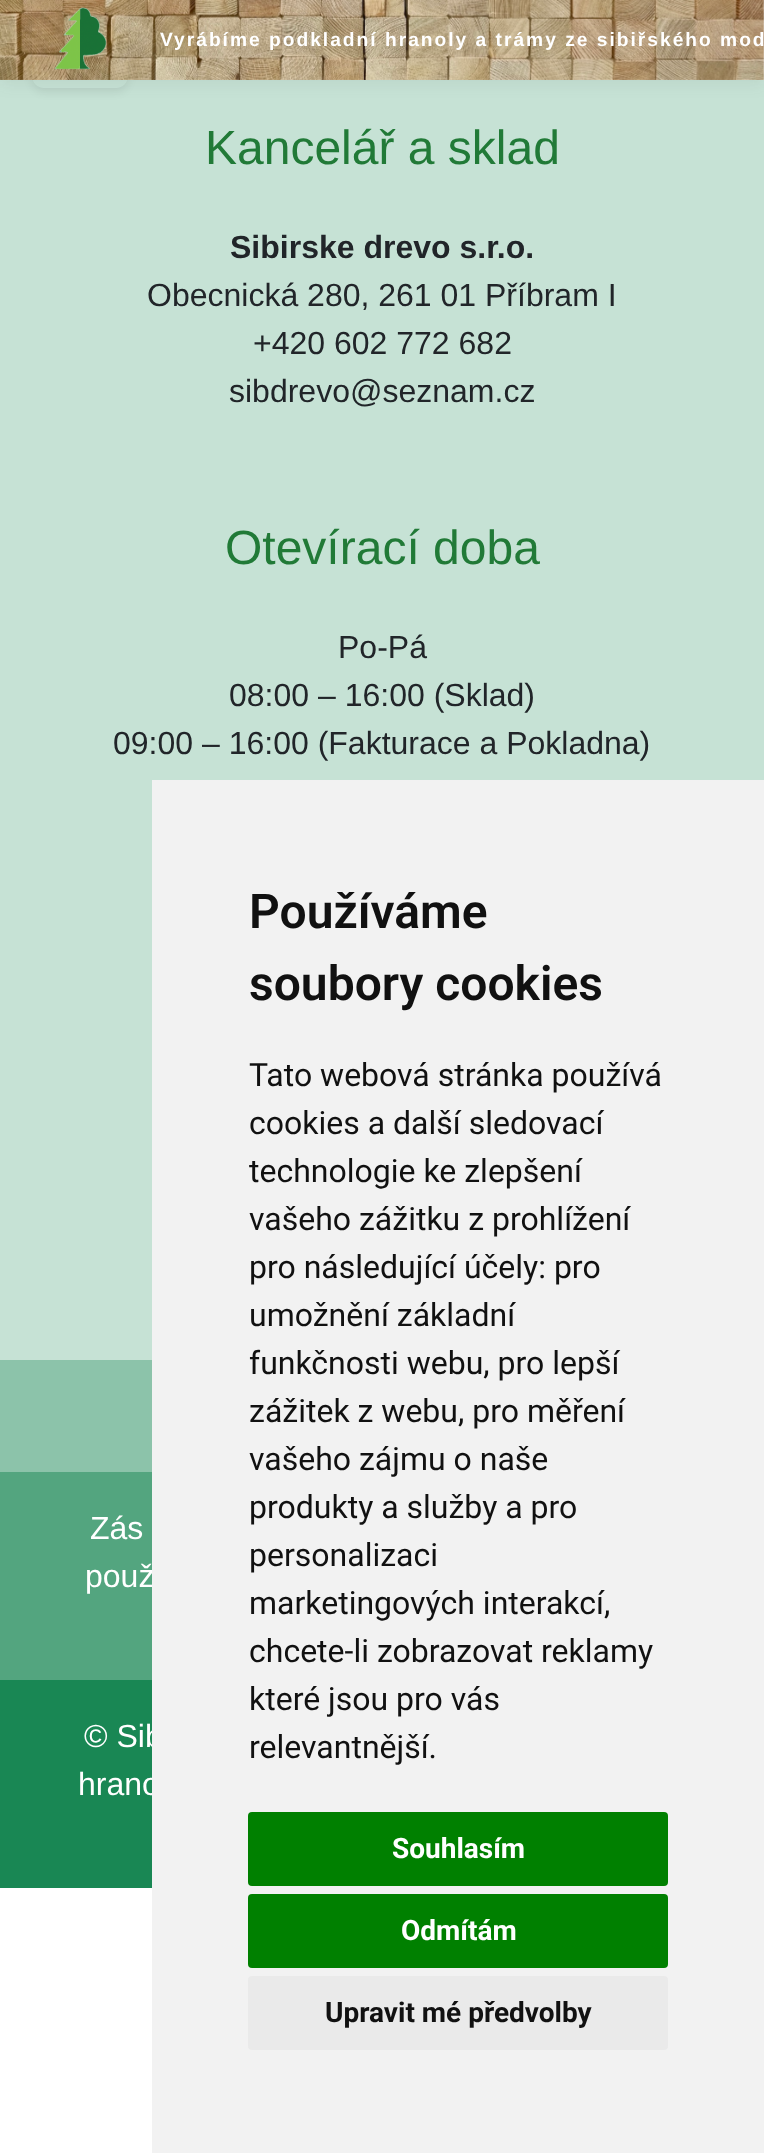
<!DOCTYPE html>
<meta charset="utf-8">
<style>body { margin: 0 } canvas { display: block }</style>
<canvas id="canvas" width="764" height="2153"></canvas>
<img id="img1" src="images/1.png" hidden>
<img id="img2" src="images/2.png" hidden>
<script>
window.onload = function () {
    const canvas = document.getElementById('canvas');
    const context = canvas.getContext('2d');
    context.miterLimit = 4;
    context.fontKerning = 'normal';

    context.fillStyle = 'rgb(255, 255, 255)';
    context.fillRect(0, 0, 764, 2153);
    context.fillStyle = 'rgb(198, 226, 213)';
    context.fillRect(0, 80, 764, 1280);
    context.fillStyle = 'rgba(60, 60, 60, 0.08)';
    context.filter = 'blur(8px)';
    context.beginPath();
    context.rect(0, 4, 764, 80);
    context.fill();
    context.filter = 'none';
    context.drawImage(document.getElementById('img1'), 0, 0, 764, 80);
    context.save();
    context.beginPath();
    context.moveTo(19, 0);
    context.lineTo(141, 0);
    context.lineTo(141, 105);
    context.lineTo(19, 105);
    context.closePath();
    context.moveTo(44, -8);
    context.lineTo(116, -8);
    context.bezierCurveTo(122.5, -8, 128, -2.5, 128, 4);
    context.lineTo(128, 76);
    context.bezierCurveTo(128, 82.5, 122.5, 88, 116, 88);
    context.lineTo(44, 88);
    context.bezierCurveTo(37.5, 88, 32, 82.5, 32, 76);
    context.lineTo(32, 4);
    context.bezierCurveTo(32, -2.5, 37.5, -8, 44, -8);
    context.closePath();
    context.clip('evenodd');
    context.fillStyle = 'rgba(0, 0, 0, 0.07)';
    context.filter = 'blur(4px)';
    context.beginPath();
    context.roundRect(32, -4, 96, 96, 12);
    context.fill();
    context.filter = 'none';
    context.restore();
    context.drawImage(document.getElementById('img2'), 54, 7, 53, 63);
    context.fillStyle = 'rgb(140, 195, 170)';
    context.fillRect(0, 1360, 152, 112);
    context.fillStyle = 'rgb(83, 165, 127)';
    context.fillRect(0, 1472, 152, 208);
    context.fillStyle = 'rgb(25, 135, 84)';
    context.fillRect(0, 1680, 152, 208);
    context.letterSpacing = '2px';
    context.font = 'bold 19.2px Liberation Sans';
    context.fillStyle = 'rgb(255, 255, 255)';
    context.fillText('Vyrábíme podkladní hranoly a trámy ze sibiřského mod', 160, 46);
    context.letterSpacing = '0px';
    context.font = '48px Liberation Sans';
    context.fillStyle = 'rgb(33, 122, 55)';
    context.fillText('Kancelář a sklad', 205, 164);
    context.font = 'bold 32px Liberation Sans';
    context.fillStyle = 'rgb(33, 37, 41)';
    context.fillText('Sibirske drevo s.r.o.', 230, 258);
    context.font = '32px Liberation Sans';
    context.fillText('Obecnická 280, 261 01 Příbram I', 147, 306);
    context.fillText('+420 602 772 682', 253, 354);
    context.fillText('sibdrevo@seznam.cz', 229, 402);
    context.font = '48px Liberation Sans';
    context.fillStyle = 'rgb(33, 122, 55)';
    context.fillText('Otevírací doba', 225, 564);
    context.font = '32px Liberation Sans';
    context.fillStyle = 'rgb(33, 37, 41)';
    context.fillText('Po-Pá', 338, 658);
    context.fillText('08:00 – 16:00 (Sklad)', 229, 706);
    context.fillText('09:00 – 16:00 (Fakturace a Pokladna)', 113, 754);
    context.fillStyle = 'rgb(255, 255, 255)';
    context.fillText('Zás', 90, 1539);
    context.fillText('použ', 85, 1587);
    context.fillText('© Sib', 84, 1747);
    context.fillText('hrano', 78, 1795);
    context.fillStyle = 'rgb(242, 242, 242)';
    context.fillRect(152, 780, 612, 1373);
    context.font = '600 48px Roboto';
    context.fillStyle = 'rgb(17, 17, 17)';
    context.fillText('Používáme', 249, 928);
    context.fillText('soubory cookies', 249, 1000);
    context.font = '32px Roboto';
    context.fillText('Tato webová stránka používá', 249, 1086);
    context.fillText('cookies a další sledovací', 249, 1134);
    context.fillText('technologie ke zlepšení', 249, 1182);
    context.fillText('vašeho zážitku z prohlížení', 249, 1230);
    context.fillText('pro následující účely: pro', 249, 1278);
    context.fillText('umožnění základní', 249, 1326);
    context.fillText('funkčnosti webu, pro lepší', 249, 1374);
    context.fillText('zážitek z webu, pro měření', 249, 1422);
    context.fillText('vašeho zájmu o naše', 249, 1470);
    context.fillText('produkty a služby a pro', 249, 1518);
    context.fillText('personalizaci', 249, 1566);
    context.fillText('marketingových interakcí,', 249, 1614);
    context.fillText('chcete-li zobrazovat reklamy', 249, 1662);
    context.fillText('které jsou pro vás', 249, 1710);
    context.fillText('relevantnější.', 249, 1758);
    context.fillStyle = 'rgb(0, 128, 0)';
    context.beginPath();
    context.roundRect(248, 1812, 420, 74, 4);
    context.fill();
    context.font = 'bold 28px Roboto';
    context.fillStyle = 'rgb(255, 255, 255)';
    context.fillText('Souhlasím', 392, 1858);
    context.fillStyle = 'rgb(0, 128, 0)';
    context.beginPath();
    context.roundRect(248, 1894, 420, 74, 4);
    context.fill();
    context.fillStyle = 'rgb(255, 255, 255)';
    context.fillText('Odmítám', 401, 1940);
    context.fillStyle = 'rgb(234, 234, 234)';
    context.beginPath();
    context.roundRect(248, 1976, 420, 74, 4);
    context.fill();
    context.fillStyle = 'rgb(17, 17, 17)';
    context.fillText('Upravit mé předvolby', 325, 2022);
};
</script>
